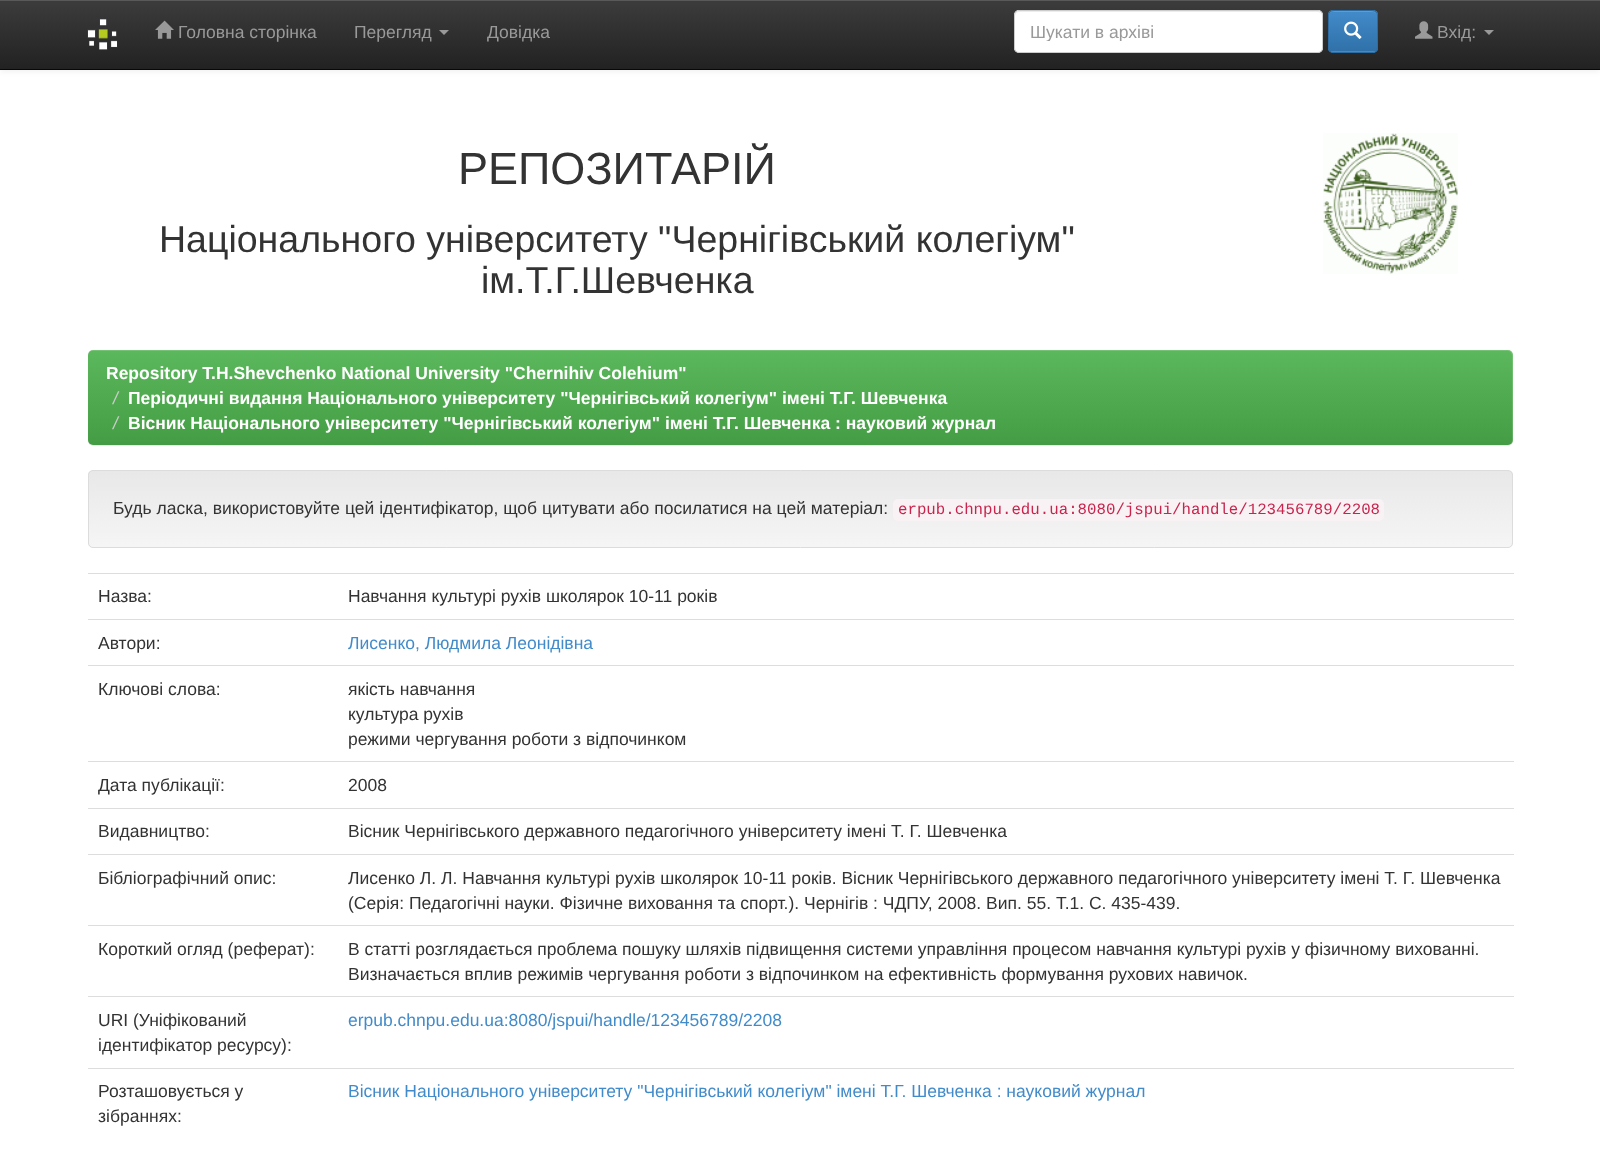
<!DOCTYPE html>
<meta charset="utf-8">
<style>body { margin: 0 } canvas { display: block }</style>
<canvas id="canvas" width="1600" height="1160"></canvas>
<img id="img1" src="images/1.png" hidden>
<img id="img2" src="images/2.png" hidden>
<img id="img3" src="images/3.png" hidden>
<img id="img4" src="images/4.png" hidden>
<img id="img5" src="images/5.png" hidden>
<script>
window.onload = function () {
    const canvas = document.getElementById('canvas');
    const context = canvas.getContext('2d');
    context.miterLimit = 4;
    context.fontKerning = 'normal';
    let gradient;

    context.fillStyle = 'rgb(255, 255, 255)';
    context.fillRect(0, 0, 1600, 1160);
    context.fillStyle = 'rgba(0, 0, 0, 0.07)';
    context.filter = 'blur(3px)';
    context.beginPath();
    context.rect(0, 1, 1600, 70);
    context.fill();
    context.filter = 'none';
    gradient = context.createLinearGradient(800, 0, 800, 69);
    gradient.addColorStop(0, 'rgb(60, 60, 60)');
    gradient.addColorStop(1, 'rgb(34, 34, 34)');
    context.fillStyle = gradient;
    context.fillRect(0, 1, 1600, 68);
    context.fillStyle = 'rgb(89, 89, 89)';
    context.fillRect(0, 0, 1600, 1);
    context.fillStyle = 'rgb(8, 8, 8)';
    context.fillRect(0, 69, 1600, 1);
    context.drawImage(document.getElementById('img1'), 87, 19, 31, 31);
    context.drawImage(document.getElementById('img2'), 155, 20, 19, 19);
    context.fillStyle = 'rgb(153, 153, 153)';
    context.beginPath();
    context.moveTo(439, 30);
    context.lineTo(449, 30);
    context.lineTo(444, 35);
    context.closePath();
    context.fill();
    context.fillStyle = 'rgb(255, 255, 255)';
    context.beginPath();
    context.roundRect(1014, 10, 309, 43, 5);
    context.fill();
    context.fillStyle = 'rgb(236, 236, 236)';
    context.beginPath();
    context.moveTo(1019, 12);
    context.lineTo(1318, 12);
    context.bezierCurveTo(1320, 12, 1321, 14, 1321, 16);
    context.bezierCurveTo(1321, 13, 1320, 11, 1317, 11);
    context.lineTo(1019, 11);
    context.lineTo(1016, 12);
    context.bezierCurveTo(1015, 13, 1015, 15, 1015, 16);
    context.bezierCurveTo(1015, 14, 1017, 12, 1019, 12);
    context.closePath();
    context.fill();
    context.beginPath();
    context.roundRect(1014.5, 10.5, 308, 42, 4.5);
    context.strokeStyle = 'rgb(204, 204, 204)';
    context.stroke();
    context.fillStyle = 'rgb(66, 139, 202)';
    context.beginPath();
    context.roundRect(1328, 10, 50, 43, 5);
    context.fill();
    context.save();
    context.beginPath();
    context.roundRect(1328, 10, 50, 43, 5);
    context.clip();
    gradient = context.createLinearGradient(1353, 11, 1353, 51);
    gradient.addColorStop(0, 'rgb(66, 139, 202)');
    gradient.addColorStop(1, 'rgb(48, 113, 169)');
    context.fillStyle = gradient;
    context.fillRect(1328, 11, 50, 40);
    context.restore();
    context.fillStyle = 'rgb(94, 156, 210)';
    context.beginPath();
    context.moveTo(1332, 12);
    context.lineTo(1372, 12);
    context.bezierCurveTo(1375, 12, 1376, 14, 1376, 16);
    context.bezierCurveTo(1376, 10, 1370, 11, 1366, 11);
    context.lineTo(1340, 11);
    context.bezierCurveTo(1335, 11, 1329, 10, 1329, 16);
    context.bezierCurveTo(1329, 14, 1330, 12, 1332, 12);
    context.closePath();
    context.fill();
    context.beginPath();
    context.roundRect(1328.5, 10.5, 49, 42, 4.5);
    context.strokeStyle = 'rgb(45, 108, 162)';
    context.stroke();
    context.drawImage(document.getElementById('img3'), 1344, 21, 18, 18);
    context.drawImage(document.getElementById('img4'), 1415, 21, 18, 18);
    context.fillStyle = 'rgb(153, 153, 153)';
    context.beginPath();
    context.moveTo(1484, 30);
    context.lineTo(1494, 30);
    context.lineTo(1489, 35);
    context.closePath();
    context.fill();
    context.drawImage(document.getElementById('img5'), 1323, 133, 135, 141);
    context.fillStyle = 'rgba(0, 0, 0, 0.07)';
    context.filter = 'blur(0.5px)';
    context.beginPath();
    context.roundRect(88, 351, 1425, 95, 5);
    context.fill();
    context.filter = 'none';
    gradient = context.createLinearGradient(800, 350, 800, 445);
    gradient.addColorStop(0, 'rgb(92, 184, 92)');
    gradient.addColorStop(1, 'rgb(68, 157, 68)');
    context.fillStyle = gradient;
    context.beginPath();
    context.roundRect(88, 350, 1425, 95, 5);
    context.fill();
    context.fillStyle = 'rgba(255, 255, 255, 0.15)';
    context.beginPath();
    context.moveTo(92, 351);
    context.lineTo(1508, 351);
    context.bezierCurveTo(1510, 351, 1512, 353, 1512, 356);
    context.lineTo(1512, 441);
    context.lineTo(1511, 444);
    context.bezierCurveTo(1512, 443, 1513, 441, 1513, 440);
    context.lineTo(1513, 355);
    context.bezierCurveTo(1513, 352, 1511, 350, 1508, 350);
    context.lineTo(93, 350);
    context.bezierCurveTo(90, 350, 88, 352, 88, 355);
    context.lineTo(88, 356);
    context.bezierCurveTo(88, 353, 90, 351, 92, 351);
    context.closePath();
    context.fill();
    context.fillStyle = 'rgb(245, 245, 245)';
    context.beginPath();
    context.roundRect(88, 470, 1425, 78, 5);
    context.fill();
    context.save();
    context.beginPath();
    context.roundRect(88, 470, 1425, 78, 5);
    context.clip();
    gradient = context.createLinearGradient(800, 471, 800, 546);
    gradient.addColorStop(0, 'rgb(232, 232, 232)');
    gradient.addColorStop(1, 'rgb(245, 245, 245)');
    context.fillStyle = gradient;
    context.fillRect(88, 471, 1425, 75);
    context.restore();
    context.beginPath();
    context.roundRect(88.5, 470.5, 1424, 77, 4.5);
    context.strokeStyle = 'rgb(220, 220, 220)';
    context.stroke();
    context.fillStyle = 'rgb(249, 242, 244)';
    context.beginPath();
    context.roundRect(893, 499, 491, 22, 5);
    context.fill();
    context.fillStyle = 'rgb(221, 221, 221)';
    context.fillRect(88, 573, 1426, 1);
    context.fillRect(88, 619, 1426, 1);
    context.fillRect(88, 665, 1426, 1);
    context.fillRect(88, 761, 1426, 1);
    context.fillRect(88, 808, 1426, 1);
    context.fillRect(88, 854, 1426, 1);
    context.fillRect(88, 925, 1426, 1);
    context.fillRect(88, 996, 1426, 1);
    context.fillRect(88, 1068, 1426, 1);
    context.font = '17.5px Liberation Sans';
    context.fillStyle = 'rgb(153, 153, 153)';
    context.fillText('Головна сторінка', 178, 38);
    context.fillText('Перегляд', 354, 38);
    context.fillText('Довідка', 487, 38);
    context.save();
    context.beginPath();
    context.rect(1030, 21, 276, 20);
    context.clip();
    context.fillText('Шукати в архіві', 1030, 38);
    context.restore();
    context.fillText('Вхід:', 1437, 38);
    context.font = '45px Liberation Sans';
    context.fillStyle = 'rgb(51, 51, 51)';
    context.fillText('РЕПОЗИТАРІЙ', 458, 184);
    context.font = '37.5px Liberation Sans';
    context.fillText('Національного університету "Чернігівський колегіум"', 159, 252);
    context.fillText('ім.Т.Г.Шевченка', 481, 293);
    context.font = 'bold 17.5px Liberation Sans';
    context.fillStyle = 'rgb(255, 255, 255)';
    context.fillText('Repository T.H.Shevchenko National University "Chernihiv Colehium"', 106, 379);
    context.font = 'italic 17.5px Liberation Sans';
    context.fillStyle = 'rgb(204, 204, 204)';
    context.fillText('/', 113, 404);
    context.font = 'bold 17.5px Liberation Sans';
    context.fillStyle = 'rgb(255, 255, 255)';
    context.fillText('Періодичні видання Національного університету "Чернігівський колегіум" імені Т.Г. Шевченка', 128, 404);
    context.font = 'italic 17.5px Liberation Sans';
    context.fillStyle = 'rgb(204, 204, 204)';
    context.fillText('/', 113, 429);
    context.font = 'bold 17.5px Liberation Sans';
    context.fillStyle = 'rgb(255, 255, 255)';
    context.fillText('Вісник Національного університету "Чернігівський колегіум" імені Т.Г. Шевченка : науковий журнал', 128, 429);
    context.font = '17.5px Liberation Sans';
    context.fillStyle = 'rgb(51, 51, 51)';
    context.fillText('Будь ласка, використовуйте цей ідентифікатор, щоб цитувати або посилатися на цей матеріал:', 113, 514);
    context.font = '15.75px Liberation Mono';
    context.fillStyle = 'rgb(199, 37, 78)';
    context.fillText('erpub.chnpu.edu.ua:8080/jspui/handle/123456789/2208', 898, 514);
    context.font = '17.5px Liberation Sans';
    context.fillStyle = 'rgb(51, 51, 51)';
    context.fillText('Назва:', 98, 602);
    context.fillText('Навчання культурі рухів школярок 10-11 років', 348, 602);
    context.fillText('Автори:', 98, 649);
    context.fillStyle = 'rgb(66, 139, 202)';
    context.fillText('Лисенко, Людмила Леонідівна', 348, 649);
    context.fillStyle = 'rgb(51, 51, 51)';
    context.fillText('Ключові слова:', 98, 695);
    context.fillText('якість навчання', 348, 695);
    context.fillText('культура рухів', 348, 720);
    context.fillText('режими чергування роботи з відпочинком', 348, 745);
    context.fillText('Дата публікації:', 98, 791);
    context.fillText('2008', 348, 791);
    context.fillText('Видавництво:', 98, 837);
    context.fillText('Вісник Чернігівського державного педагогічного університету імені Т. Г. Шевченка', 348, 837);
    context.fillText('Бібліографічний опис:', 98, 884);
    context.fillText('Лисенко Л. Л. Навчання культурі рухів школярок 10-11 років. Вісник Чернігівського державного педагогічного університету імені Т. Г. Шевченка', 348, 884);
    context.fillText('(Серія: Педагогічні науки. Фізичне виховання та спорт.). Чернігів : ЧДПУ, 2008. Вип. 55. Т.1. С. 435-439.', 348, 909);
    context.fillText('Короткий огляд (реферат):', 98, 955);
    context.fillText('В статті розглядається проблема пошуку шляхів підвищення системи управління процесом навчання культурі рухів у фізичному вихованні.', 348, 955);
    context.fillText('Визначається вплив режимів чергування роботи з відпочинком на ефективність формування рухових навичок.', 348, 980);
    context.fillText('URI (Уніфікований', 98, 1026);
    context.fillText('ідентифікатор ресурсу):', 98, 1051);
    context.fillStyle = 'rgb(66, 139, 202)';
    context.fillText('erpub.chnpu.edu.ua:8080/jspui/handle/123456789/2208', 348, 1026);
    context.fillStyle = 'rgb(51, 51, 51)';
    context.fillText('Розташовується у', 98, 1097);
    context.fillText('зібраннях:', 98, 1122);
    context.fillStyle = 'rgb(66, 139, 202)';
    context.fillText('Вісник Національного університету "Чернігівський колегіум" імені Т.Г. Шевченка : науковий журнал', 348, 1097);
};
</script>
